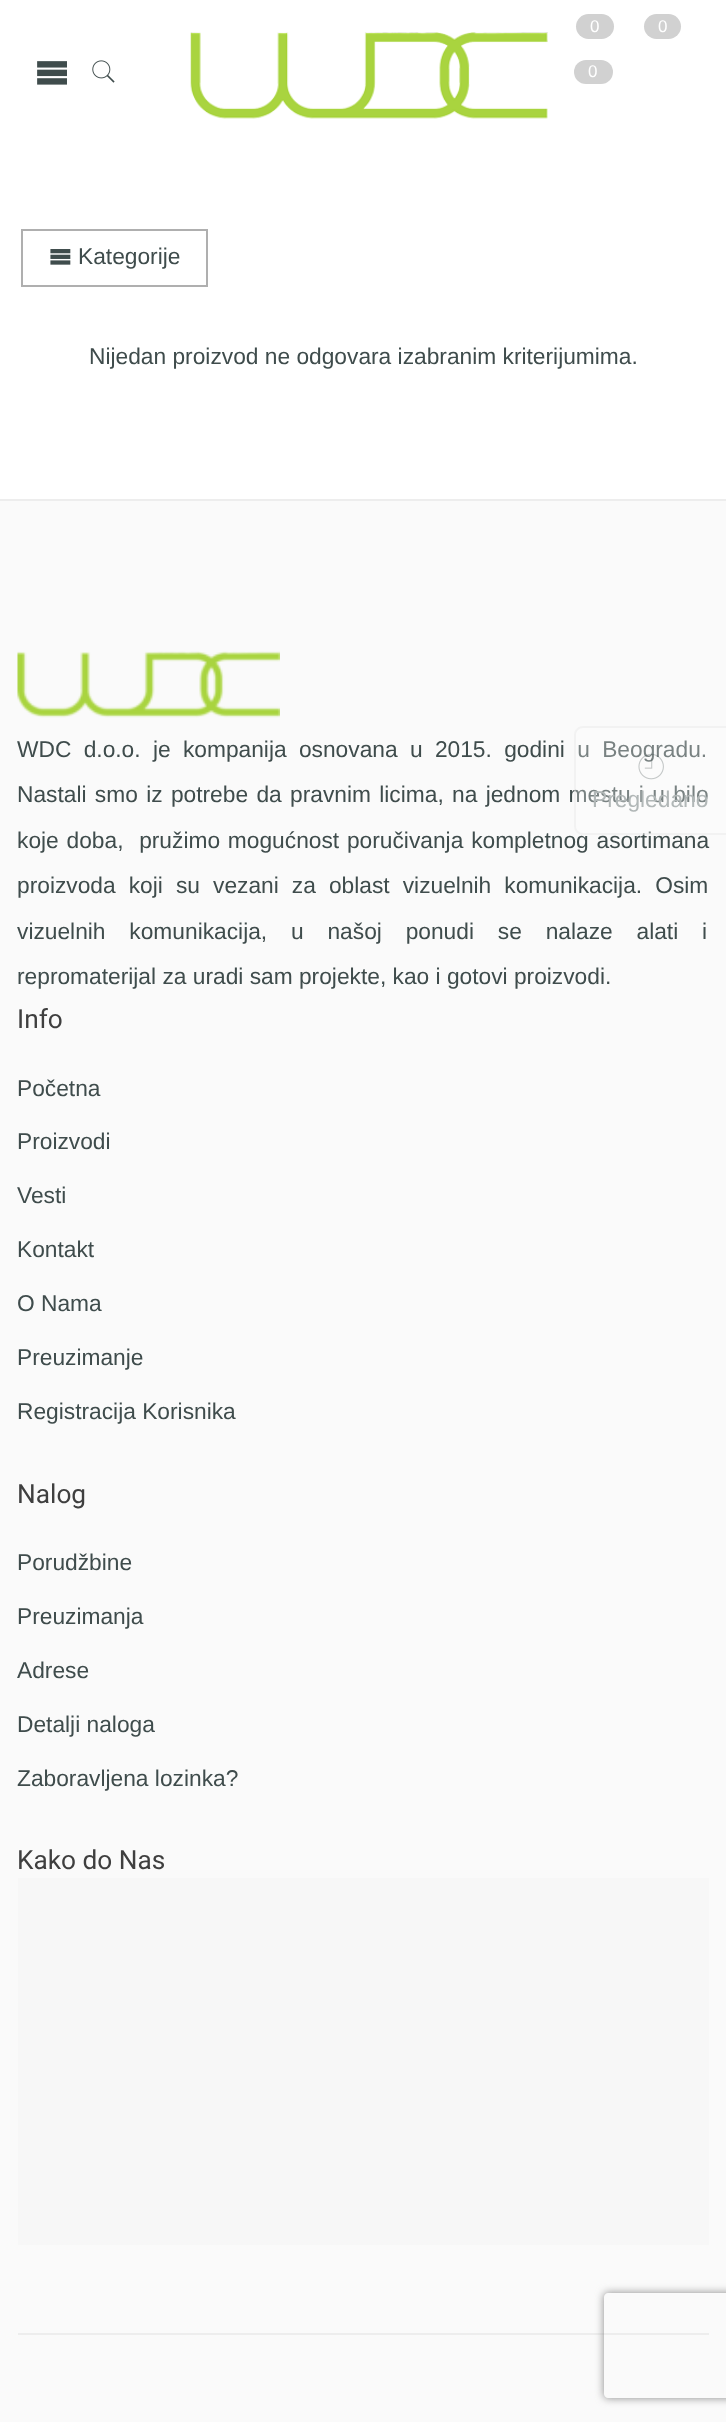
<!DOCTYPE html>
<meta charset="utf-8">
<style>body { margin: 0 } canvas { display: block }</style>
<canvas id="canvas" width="726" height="2422"></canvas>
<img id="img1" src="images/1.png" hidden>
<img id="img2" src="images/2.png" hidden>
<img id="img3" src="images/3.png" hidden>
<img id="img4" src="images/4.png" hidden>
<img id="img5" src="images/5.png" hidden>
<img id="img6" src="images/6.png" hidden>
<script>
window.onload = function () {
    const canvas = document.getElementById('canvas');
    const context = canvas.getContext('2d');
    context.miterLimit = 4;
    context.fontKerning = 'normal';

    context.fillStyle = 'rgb(255, 255, 255)';
    context.fillRect(0, 0, 726, 2422);
    context.drawImage(document.getElementById('img1'), 37, 61, 30, 24);
    context.drawImage(document.getElementById('img2'), 92, 60, 23, 23);
    context.drawImage(document.getElementById('img3'), 190, 32, 358, 87);
    context.fillStyle = 'rgb(209, 209, 209)';
    context.beginPath();
    context.roundRect(576, 14, 38, 25, 12.5);
    context.fill();
    context.beginPath();
    context.roundRect(644, 14, 37, 25, 12.5);
    context.fill();
    context.beginPath();
    context.roundRect(574, 60, 39, 24, 12);
    context.fill();
    context.strokeStyle = 'rgb(175, 175, 175)';
    context.lineWidth = 2;
    context.strokeRect(22, 230, 185, 56);
    context.drawImage(document.getElementById('img4'), 50, 249, 21, 16);
    context.fillStyle = 'rgb(250, 250, 250)';
    context.fillRect(0, 501, 726, 1921);
    context.fillStyle = 'rgb(237, 237, 237)';
    context.fillRect(0, 499, 726, 2);
    context.drawImage(document.getElementById('img5'), 17, 651, 263, 67);
    context.fillStyle = 'rgb(247, 247, 247)';
    context.fillRect(18, 1878, 691, 367);
    context.fillStyle = 'rgb(237, 237, 237)';
    context.fillRect(18, 2333, 691, 2);
    context.save();
    context.beginPath();
    context.moveTo(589, 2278);
    context.lineTo(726, 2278);
    context.lineTo(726, 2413);
    context.lineTo(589, 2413);
    context.closePath();
    context.moveTo(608, 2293);
    context.lineTo(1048, 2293);
    context.bezierCurveTo(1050, 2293, 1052, 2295, 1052, 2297);
    context.lineTo(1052, 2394);
    context.bezierCurveTo(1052, 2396, 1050, 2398, 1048, 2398);
    context.lineTo(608, 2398);
    context.bezierCurveTo(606, 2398, 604, 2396, 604, 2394);
    context.lineTo(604, 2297);
    context.bezierCurveTo(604, 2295, 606, 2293, 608, 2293);
    context.closePath();
    context.clip('evenodd');
    context.fillStyle = 'rgb(136, 136, 136)';
    context.filter = 'blur(4.5px)';
    context.beginPath();
    context.roundRect(604, 2293, 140, 105, 4);
    context.fill();
    context.filter = 'none';
    context.restore();
    context.font = '17px Liberation Sans';
    context.fillStyle = 'rgb(255, 255, 255)';
    context.fillText('0', 590, 32);
    context.fillText('0', 658, 32);
    context.fillText('0', 588, 77);
    context.font = '22.75px Liberation Sans';
    context.fillStyle = 'rgb(63, 76, 76)';
    context.fillText('Kategorije', 78, 264);
    context.fillText('Nijedan proizvod ne odgovara izabranim kriterijumima.', 89, 364);
    context.wordSpacing = '6px';
    context.fillText('WDC d.o.o. je kompanija osnovana u 2015. godini u Beogradu.', 17, 757);
    context.wordSpacing = '2px';
    context.fillText('Nastali smo iz potrebe da pravnim licima, na jednom mestu i u bilo', 17, 802);
    context.wordSpacing = '1.5px';
    context.fillText('koje doba,  pružimo mogućnost poručivanja kompletnog asortimana', 17, 848);
    context.wordSpacing = '6.75px';
    context.fillText('proizvoda koji su vezani za oblast vizuelnih komunikacija. Osim', 17, 893);
    context.wordSpacing = '17.5px';
    context.fillText('vizuelnih komunikacija, u našoj ponudi se nalaze alati i', 17, 939);
    context.wordSpacing = '0px';
    context.fillText('repromaterijal za uradi sam projekte, kao i gotovi proizvodi.', 17, 984);
    context.font = '26.25px Roboto';
    context.fillStyle = 'rgb(63, 63, 63)';
    context.fillText('Info', 17, 1028);
    context.font = '22.75px Liberation Sans';
    context.fillStyle = 'rgb(63, 76, 76)';
    context.fillText('Početna', 17, 1096);
    context.fillText('Proizvodi', 17, 1149);
    context.fillText('Vesti', 17, 1203);
    context.fillText('Kontakt', 17, 1257);
    context.fillText('O Nama', 17, 1311);
    context.fillText('Preuzimanje', 17, 1365);
    context.fillText('Registracija Korisnika', 17, 1419);
    context.font = '26.25px Roboto';
    context.fillStyle = 'rgb(63, 63, 63)';
    context.fillText('Nalog', 17, 1503);
    context.font = '22.75px Liberation Sans';
    context.fillStyle = 'rgb(63, 76, 76)';
    context.fillText('Porudžbine', 17, 1570);
    context.fillText('Preuzimanja', 17, 1624);
    context.fillText('Adrese', 17, 1678);
    context.fillText('Detalji naloga', 17, 1732);
    context.fillText('Zaboravljena lozinka?', 17, 1786);
    context.font = '26.25px Roboto';
    context.fillStyle = 'rgb(63, 63, 63)';
    context.fillText('Kako do Nas', 17, 1869);
    context.fillStyle = 'rgba(255, 255, 255, 0.3)';
    context.beginPath();
    context.roundRect(574, 726, 152, 109, [9, 0, 0, 9]);
    context.fill();
    context.fillStyle = 'rgba(223, 223, 223, 0.3)';
    context.beginPath();
    context.moveTo(583, 726);
    context.lineTo(726, 726);
    context.lineTo(726, 835);
    context.lineTo(583, 835);
    context.bezierCurveTo(578, 835, 574, 831, 574, 826);
    context.lineTo(574, 735);
    context.bezierCurveTo(574, 730, 578, 726, 583, 726);
    context.closePath();
    context.moveTo(583, 728);
    context.lineTo(726, 728);
    context.lineTo(726, 833);
    context.lineTo(583, 833);
    context.bezierCurveTo(579, 833, 576, 830, 576, 826);
    context.lineTo(576, 735);
    context.bezierCurveTo(576, 731, 579, 728, 583, 728);
    context.closePath();
    context.fill('evenodd');
    context.drawImage(document.getElementById('img6'), 638, 753, 26, 27);
    context.font = '22.75px Liberation Sans';
    context.fillStyle = 'rgb(177, 183, 183)';
    context.fillText('Pregledano', 592, 807);
};
</script>
